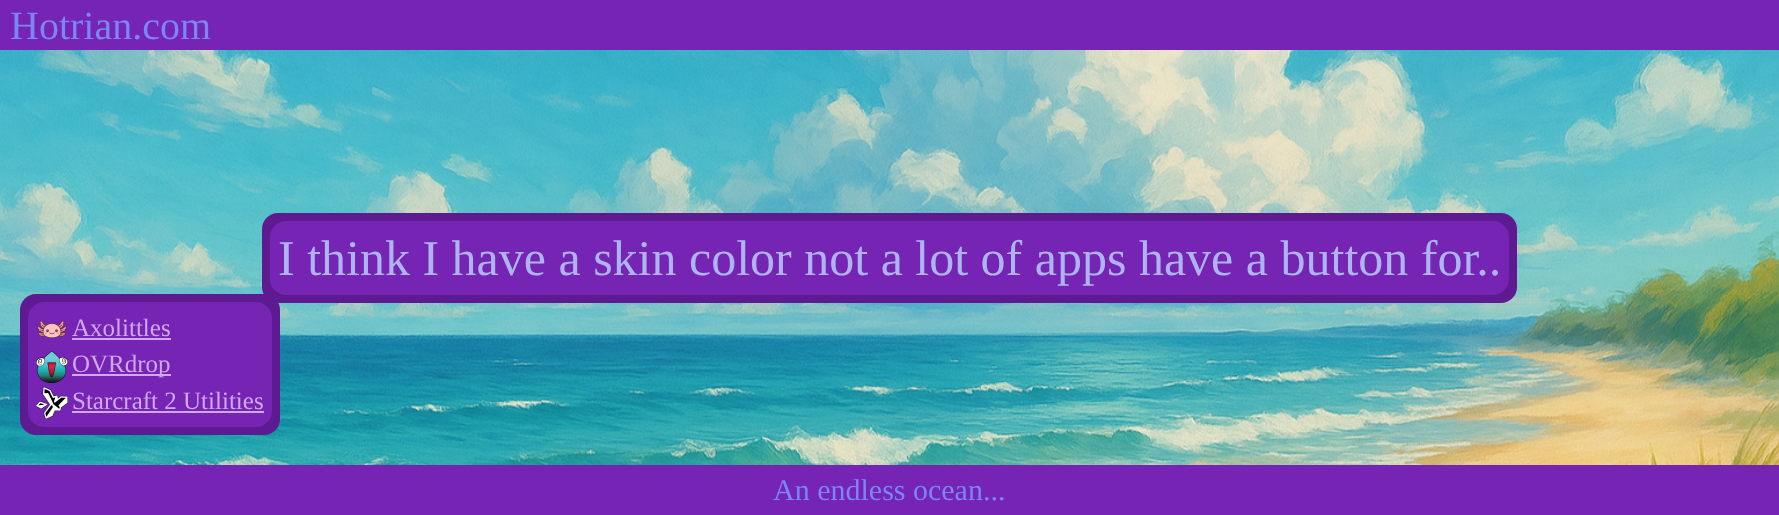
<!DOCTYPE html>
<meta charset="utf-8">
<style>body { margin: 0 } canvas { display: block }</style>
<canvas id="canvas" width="1779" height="515"></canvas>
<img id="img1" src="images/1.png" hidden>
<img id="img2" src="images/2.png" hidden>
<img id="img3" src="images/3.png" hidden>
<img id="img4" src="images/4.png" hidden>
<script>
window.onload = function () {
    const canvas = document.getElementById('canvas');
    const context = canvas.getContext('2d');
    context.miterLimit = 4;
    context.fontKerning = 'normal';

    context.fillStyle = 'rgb(255, 255, 255)';
    context.fillRect(0, 0, 1779, 515);
    context.drawImage(document.getElementById('img1'), 0, 50, 1779, 415);
    context.fillStyle = 'rgb(117, 36, 179)';
    context.fillRect(0, 0, 1779, 50);
    context.fillStyle = 'rgb(94, 26, 145)';
    context.beginPath();
    context.roundRect(262, 213, 1255, 90, 16);
    context.fill();
    context.fillStyle = 'rgb(117, 36, 179)';
    context.beginPath();
    context.roundRect(270, 221, 1239, 74, 16);
    context.fill();
    context.fillStyle = 'rgb(94, 26, 145)';
    context.beginPath();
    context.roundRect(20, 294, 260, 141, 16);
    context.fill();
    context.fillStyle = 'rgb(117, 36, 179)';
    context.beginPath();
    context.roundRect(28, 302, 244, 125, 16);
    context.fill();
    context.drawImage(document.getElementById('img2'), 37, 320, 30, 18);
    context.fillStyle = 'rgb(209, 168, 240)';
    context.fillRect(72, 338, 99, 2);
    context.drawImage(document.getElementById('img3'), 36, 351, 32, 32);
    context.fillRect(72, 374, 99, 2);
    context.drawImage(document.getElementById('img4'), 36, 387, 32, 32);
    context.fillRect(72, 411, 192, 2);
    context.fillStyle = 'rgb(117, 36, 179)';
    context.fillRect(0, 465, 1779, 50);
    context.font = '40px Liberation Serif';
    context.fillStyle = 'rgb(124, 133, 242)';
    context.fillText('Hotrian.com', 10, 39);
    context.font = '50px Liberation Serif';
    context.fillStyle = 'rgb(174, 180, 242)';
    context.fillText('I think I have a skin color not a lot of apps have a button for..', 278, 275);
    context.font = '25px Liberation Serif';
    context.fillStyle = 'rgb(209, 168, 240)';
    context.fillText('Axolittles', 72, 336);
    context.fillText('OVRdrop', 72, 372);
    context.fillText('Starcraft 2 Utilities', 72, 409);
    context.font = '30px Liberation Serif';
    context.fillStyle = 'rgb(124, 133, 242)';
    context.fillText('An endless ocean...', 773, 500);
};
</script>
